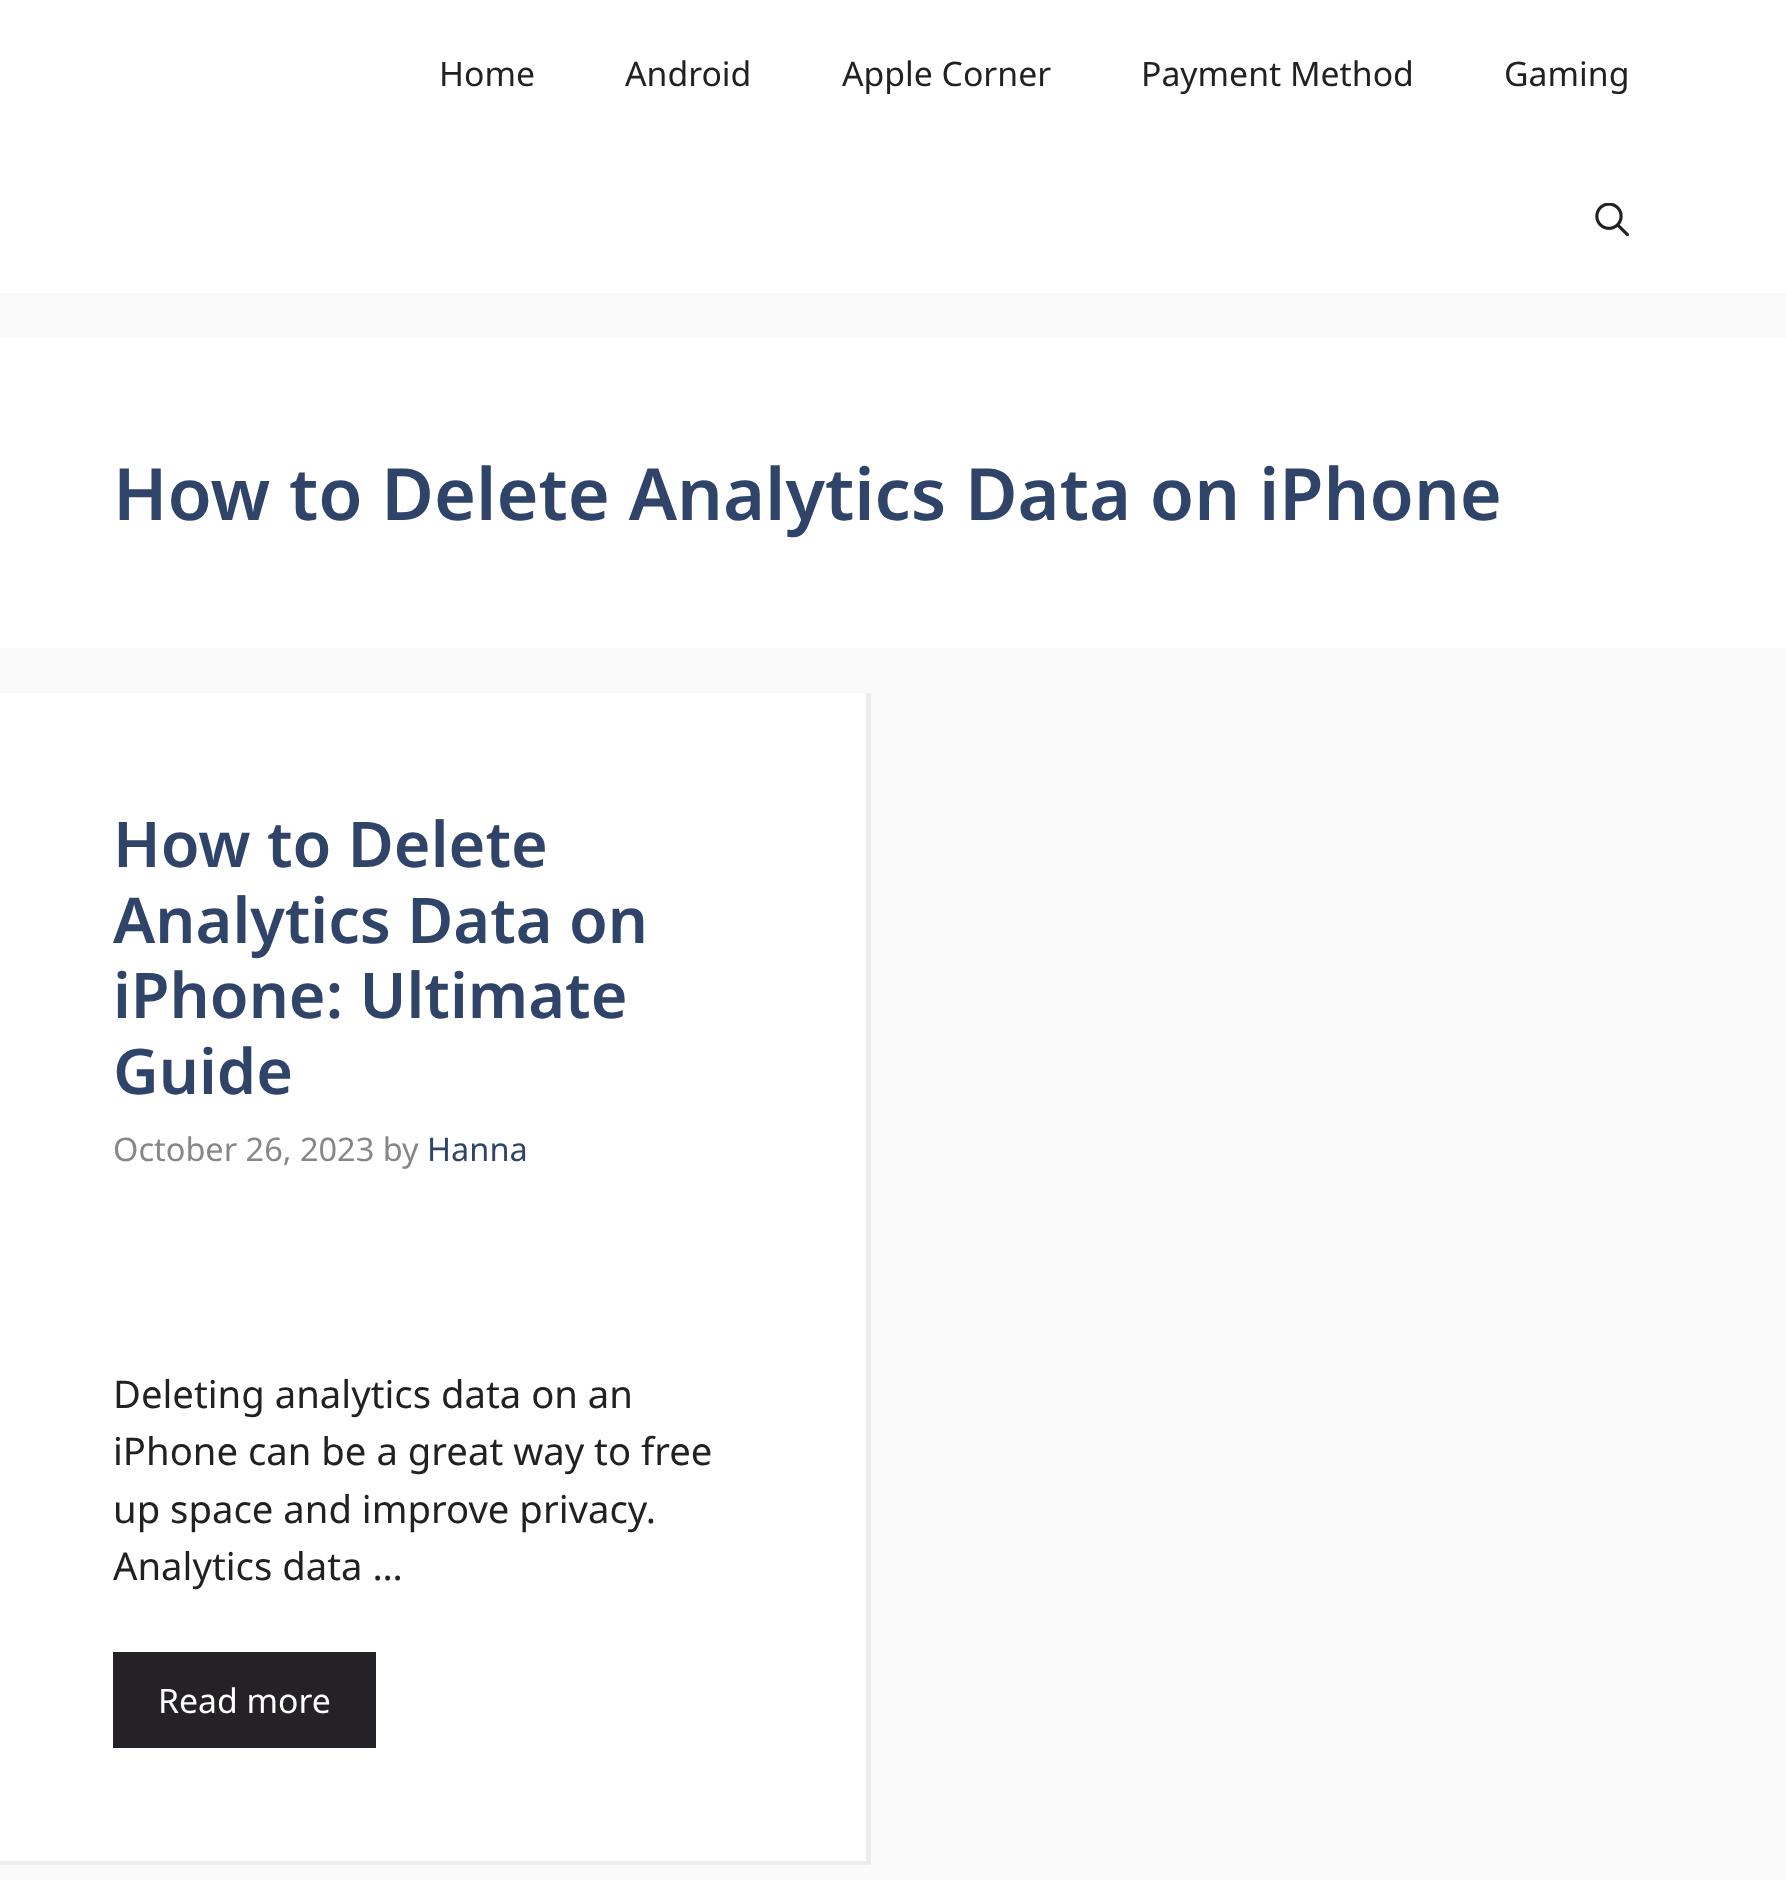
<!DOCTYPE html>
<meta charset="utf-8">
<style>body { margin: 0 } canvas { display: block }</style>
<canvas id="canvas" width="1786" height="1880"></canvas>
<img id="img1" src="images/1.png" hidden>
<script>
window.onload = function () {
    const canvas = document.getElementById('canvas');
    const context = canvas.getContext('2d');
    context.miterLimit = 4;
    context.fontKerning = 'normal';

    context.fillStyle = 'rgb(250, 250, 250)';
    context.fillRect(0, 0, 1786, 1880);
    context.fillStyle = 'rgb(255, 255, 255)';
    context.fillRect(0, 0, 1786, 293);
    context.drawImage(document.getElementById('img1'), 1595, 203, 34, 33);
    context.fillRect(0, 338, 1786, 310);
    context.fillRect(0, 693, 871, 1172);
    context.fillStyle = 'rgb(237, 237, 237)';
    context.beginPath();
    context.moveTo(871, 693);
    context.lineTo(871, 1865);
    context.lineTo(866, 1861);
    context.lineTo(866, 693);
    context.closePath();
    context.fill();
    context.fillStyle = 'rgba(0, 0, 0, 0.07)';
    context.beginPath();
    context.moveTo(871, 1865);
    context.lineTo(0, 1865);
    context.lineTo(0, 1861);
    context.lineTo(866, 1861);
    context.closePath();
    context.fill();
    context.fillStyle = 'rgb(36, 34, 38)';
    context.fillRect(113, 1652, 263, 96);
    context.font = '33.75px Noto Sans';
    context.fillStyle = 'rgb(33, 33, 33)';
    context.fillText('Home', 439, 86);
    context.fillText('Android', 625, 86);
    context.fillText('Apple Corner', 842, 86);
    context.fillText('Payment Method', 1141, 86);
    context.fillText('Gaming', 1504, 86);
    context.font = '600 72px Noto Sans';
    context.fillStyle = 'rgb(47, 68, 104)';
    context.fillText('How to Delete Analytics Data on iPhone', 113, 520);
    context.font = '600 63px Noto Sans';
    context.fillText('How to Delete', 113, 867);
    context.fillText('Analytics Data on', 113, 943);
    context.fillText('iPhone: Ultimate', 113, 1018);
    context.fillText('Guide', 113, 1094);
    context.font = '32.5px Noto Sans';
    context.fillStyle = 'rgb(135, 135, 135)';
    context.fillText('October 26, 2023 by', 113, 1161);
    context.fillStyle = 'rgb(47, 68, 104)';
    context.fillText('Hanna', 427, 1161);
    context.font = '38.25px Noto Sans';
    context.fillStyle = 'rgb(33, 33, 33)';
    context.fillText('Deleting analytics data on an', 113, 1408);
    context.fillText('iPhone can be a great way to free', 113, 1465);
    context.fillText('up space and improve privacy.', 113, 1523);
    context.fillText('Analytics data …', 113, 1580);
    context.font = '33.75px Noto Sans';
    context.fillStyle = 'rgb(255, 255, 255)';
    context.fillText('Read more', 158, 1713);
};
</script>
